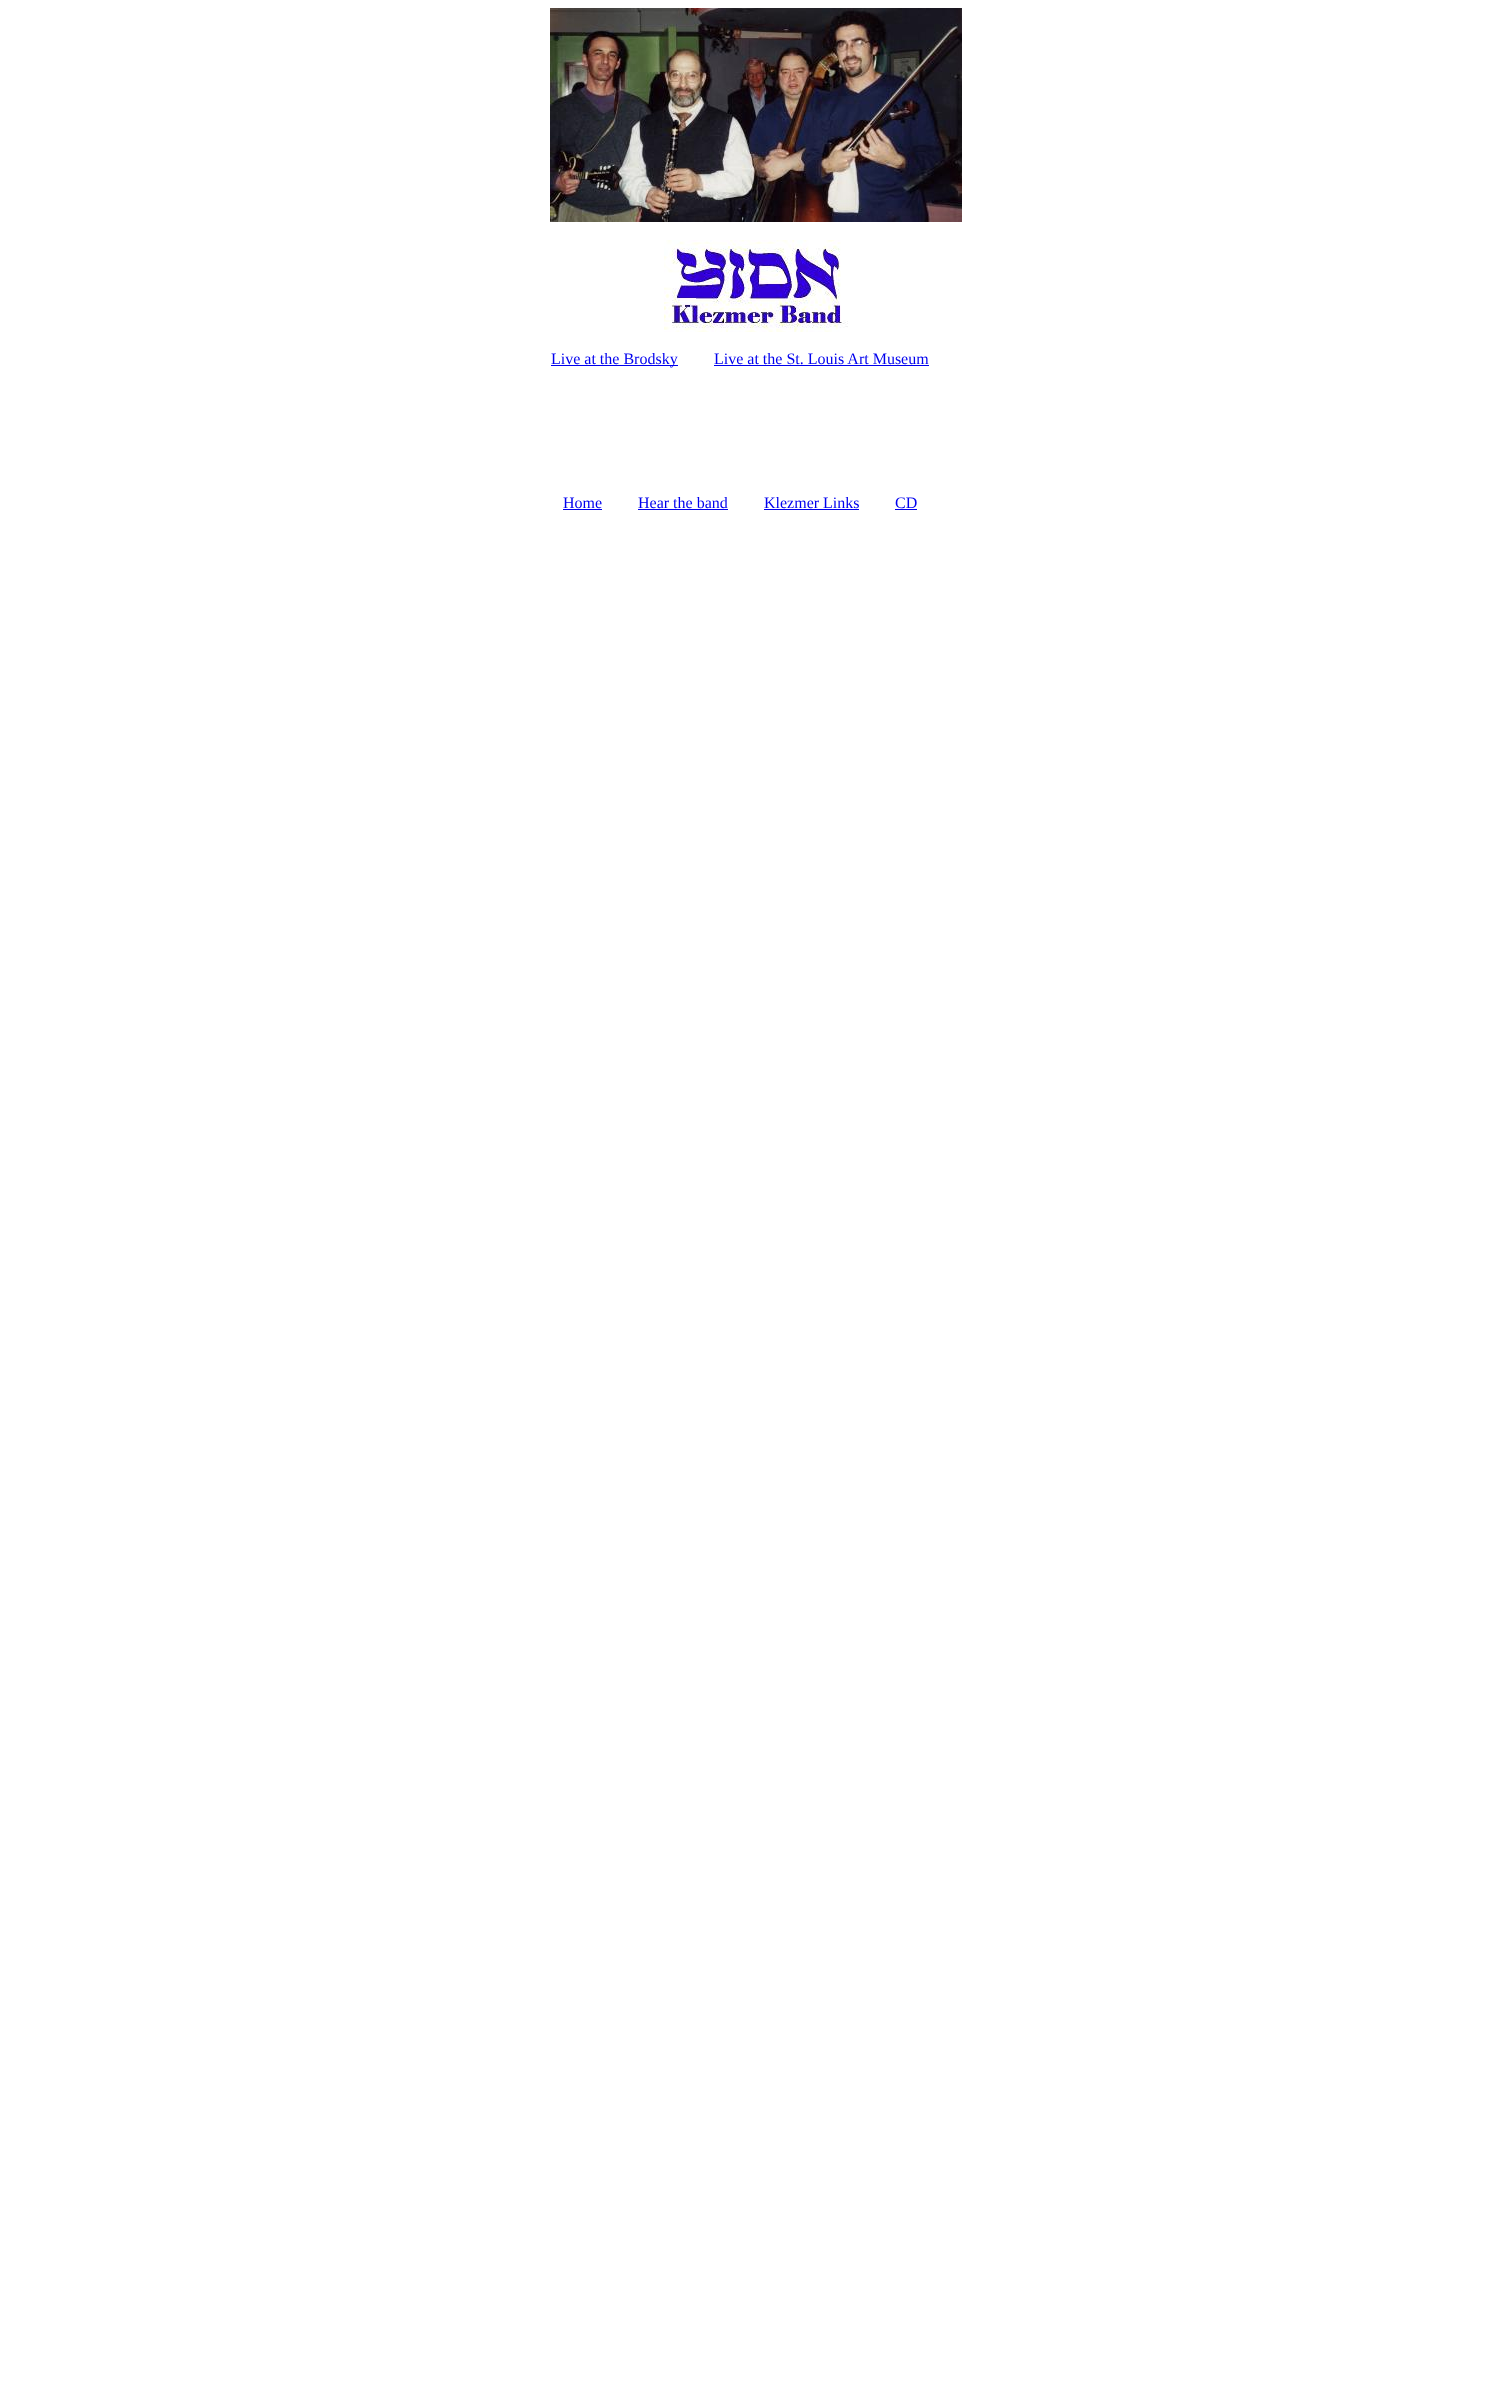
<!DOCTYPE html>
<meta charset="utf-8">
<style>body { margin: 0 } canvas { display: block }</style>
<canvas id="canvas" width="1512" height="2390"></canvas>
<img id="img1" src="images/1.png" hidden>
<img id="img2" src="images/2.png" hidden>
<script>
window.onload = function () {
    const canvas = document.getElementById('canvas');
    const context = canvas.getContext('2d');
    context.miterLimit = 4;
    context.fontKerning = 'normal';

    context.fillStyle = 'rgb(255, 255, 255)';
    context.fillRect(0, 0, 1512, 2390);
    context.drawImage(document.getElementById('img1'), 550, 8, 412, 214);
    context.drawImage(document.getElementById('img2'), 664, 240, 184, 92);
    context.fillStyle = 'rgb(0, 0, 238)';
    context.fillRect(551, 365, 127, 1);
    context.fillRect(714, 365, 215, 1);
    context.fillRect(563, 509, 39, 1);
    context.fillRect(638, 509, 90, 1);
    context.fillRect(764, 509, 95, 1);
    context.fillRect(895, 509, 22, 1);
    context.font = '16px Liberation Serif';
    context.fillText('Live at the Brodsky', 551, 364);
    context.fillText('Live at the St. Louis Art Museum', 714, 364);
    context.fillText('Home', 563, 508);
    context.fillText('Hear the band', 638, 508);
    context.fillText('Klezmer Links', 764, 508);
    context.fillText('CD', 895, 508);
};
</script>
